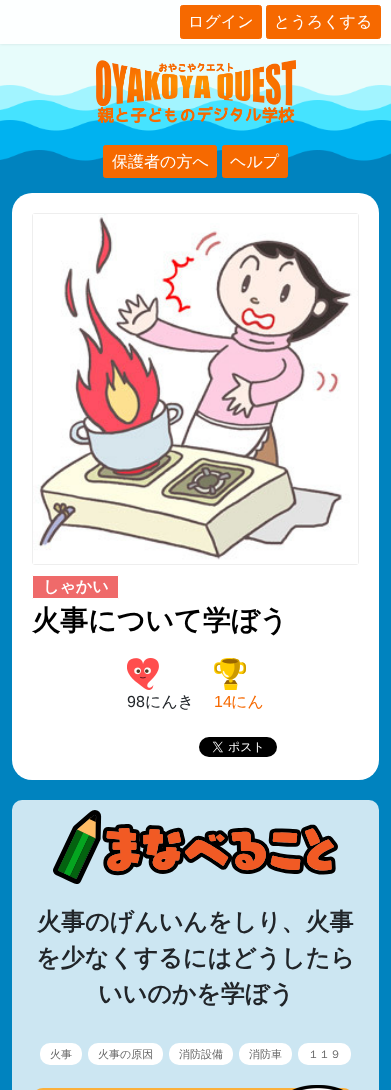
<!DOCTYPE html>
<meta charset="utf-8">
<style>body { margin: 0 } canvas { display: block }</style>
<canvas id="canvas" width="391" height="1090"></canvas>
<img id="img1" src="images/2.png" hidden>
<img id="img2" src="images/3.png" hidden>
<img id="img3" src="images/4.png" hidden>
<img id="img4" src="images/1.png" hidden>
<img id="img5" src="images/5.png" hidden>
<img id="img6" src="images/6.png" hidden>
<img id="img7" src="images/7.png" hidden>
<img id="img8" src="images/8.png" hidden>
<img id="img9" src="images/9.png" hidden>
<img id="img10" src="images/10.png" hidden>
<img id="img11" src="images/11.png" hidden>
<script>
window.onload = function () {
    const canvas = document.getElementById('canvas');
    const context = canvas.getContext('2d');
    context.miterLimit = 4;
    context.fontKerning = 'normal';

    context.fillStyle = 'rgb(231, 252, 251)';
    context.fillRect(0, 0, 391, 1090);
    context.fillStyle = 'rgba(0, 0, 0, 0.1)';
    context.filter = 'blur(1.5px)';
    context.beginPath();
    context.rect(0, 0, 391, 44);
    context.fill();
    context.filter = 'none';
    context.fillStyle = 'rgb(253, 255, 255)';
    context.fillRect(0, 0, 391, 44);
    context.fillStyle = 'rgb(246, 105, 0)';
    context.beginPath();
    context.roundRect(180.5, 5.5, 81, 33, 2);
    context.fill();
    context.strokeStyle = 'rgb(246, 105, 0)';
    context.stroke();
    context.beginPath();
    context.roundRect(266.5, 5.5, 114, 33, 2);
    context.fill();
    context.stroke();
    context.drawImage(document.getElementById('img1'), 0, 85, 391, 26);
    context.drawImage(document.getElementById('img2'), 0, 100, 391, 31);
    context.drawImage(document.getElementById('img3'), 0, 120, 391, 41);
    context.drawImage(document.getElementById('img4'), 96, 60, 200, 63);
    context.drawImage(document.getElementById('img5'), 0, 150, 391, 43);
    context.beginPath();
    context.roundRect(103.5, 145.5, 113, 32, 2);
    context.fill();
    context.stroke();
    context.beginPath();
    context.roundRect(222.5, 145.5, 65, 32, 2);
    context.fill();
    context.stroke();
    context.fillStyle = 'rgb(0, 131, 191)';
    context.fillRect(0, 193, 391, 897);
    context.fillStyle = 'rgb(255, 255, 255)';
    context.beginPath();
    context.roundRect(12, 193, 367, 587, 20);
    context.fill();
    context.beginPath();
    context.roundRect(32.5, 213.5, 326, 351, 2.5);
    context.strokeStyle = 'rgb(238, 238, 238)';
    context.stroke();
    context.drawImage(document.getElementById('img6'), 33, 214, 325, 350);
    context.fillStyle = 'rgb(239, 106, 106)';
    context.beginPath();
    context.roundRect(32.5, 575.5, 86, 23, 0.5);
    context.fill();
    context.strokeStyle = 'rgb(255, 255, 255)';
    context.stroke();
    context.drawImage(document.getElementById('img7'), 127, 658, 32, 32);
    context.drawImage(document.getElementById('img8'), 214, 658, 32, 32);
    context.drawImage(document.getElementById('img9'), 199, 737, 78, 20);
    context.fillStyle = 'rgb(204, 230, 242)';
    context.beginPath();
    context.roundRect(12, 800, 367, 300, 10);
    context.fill();
    context.drawImage(document.getElementById('img10'), 53, 810, 285, 74);
    context.fillStyle = 'rgb(255, 255, 255)';
    context.beginPath();
    context.roundRect(40, 1043, 42, 22, 10);
    context.fill();
    context.beginPath();
    context.roundRect(88, 1043, 75, 22, 10);
    context.fill();
    context.beginPath();
    context.roundRect(169, 1043, 64, 22, 10);
    context.fill();
    context.beginPath();
    context.roundRect(239, 1043, 53, 22, 10);
    context.fill();
    context.beginPath();
    context.roundRect(298, 1043, 53, 22, 10);
    context.fill();
    context.fillStyle = 'rgb(251, 176, 59)';
    context.beginPath();
    context.roundRect(32, 1088, 322, 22, 20);
    context.fill();
    context.drawImage(document.getElementById('img11'), 292, 1085, 52, 5);
    context.font = '500 16px WenQuanYi Zen Hei';
    context.fillStyle = 'rgb(255, 255, 255)';
    context.fillText('ログイン', 188, 27);
    context.fillText('とうろくする', 274, 27);
    context.fillText('保護者の方へ', 112, 167);
    context.fillText('ヘルプ', 230, 167);
    context.font = 'bold 16px WenQuanYi Zen Hei';
    context.fillText('しゃかい', 43, 592);
    context.font = 'bold 28px WenQuanYi Zen Hei';
    context.fillStyle = 'rgb(0, 0, 0)';
    context.fillText('火事について学ぼう', 32, 630);
    context.font = '16px Liberation Sans';
    context.fillStyle = 'rgb(33, 37, 41)';
    context.fillText('98', 127, 707);
    context.font = '500 16px WenQuanYi Zen Hei';
    context.fillText('にんき', 145, 707);
    context.font = '16px Liberation Sans';
    context.fillStyle = 'rgb(246, 105, 0)';
    context.fillText('14', 214, 707);
    context.font = '500 16px WenQuanYi Zen Hei';
    context.fillText('にん', 231, 707);
    context.font = 'bold 24px WenQuanYi Zen Hei';
    context.fillStyle = 'rgb(33, 37, 41)';
    context.fillText('火事のげんいんをしり、火事', 37, 930);
    context.fillText('を少なくするにはどうしたら', 36, 966);
    context.fillText('いいのかを学ぼう', 98, 1002);
    context.font = '500 11px WenQuanYi Zen Hei';
    context.fillStyle = 'rgb(102, 102, 102)';
    context.fillText('火事', 50, 1058);
    context.fillText('火事の原因', 98, 1058);
    context.fillText('消防設備', 179, 1058);
    context.fillText('消防車', 249, 1058);
    context.fillText('１１９', 308, 1058);
};
</script>
